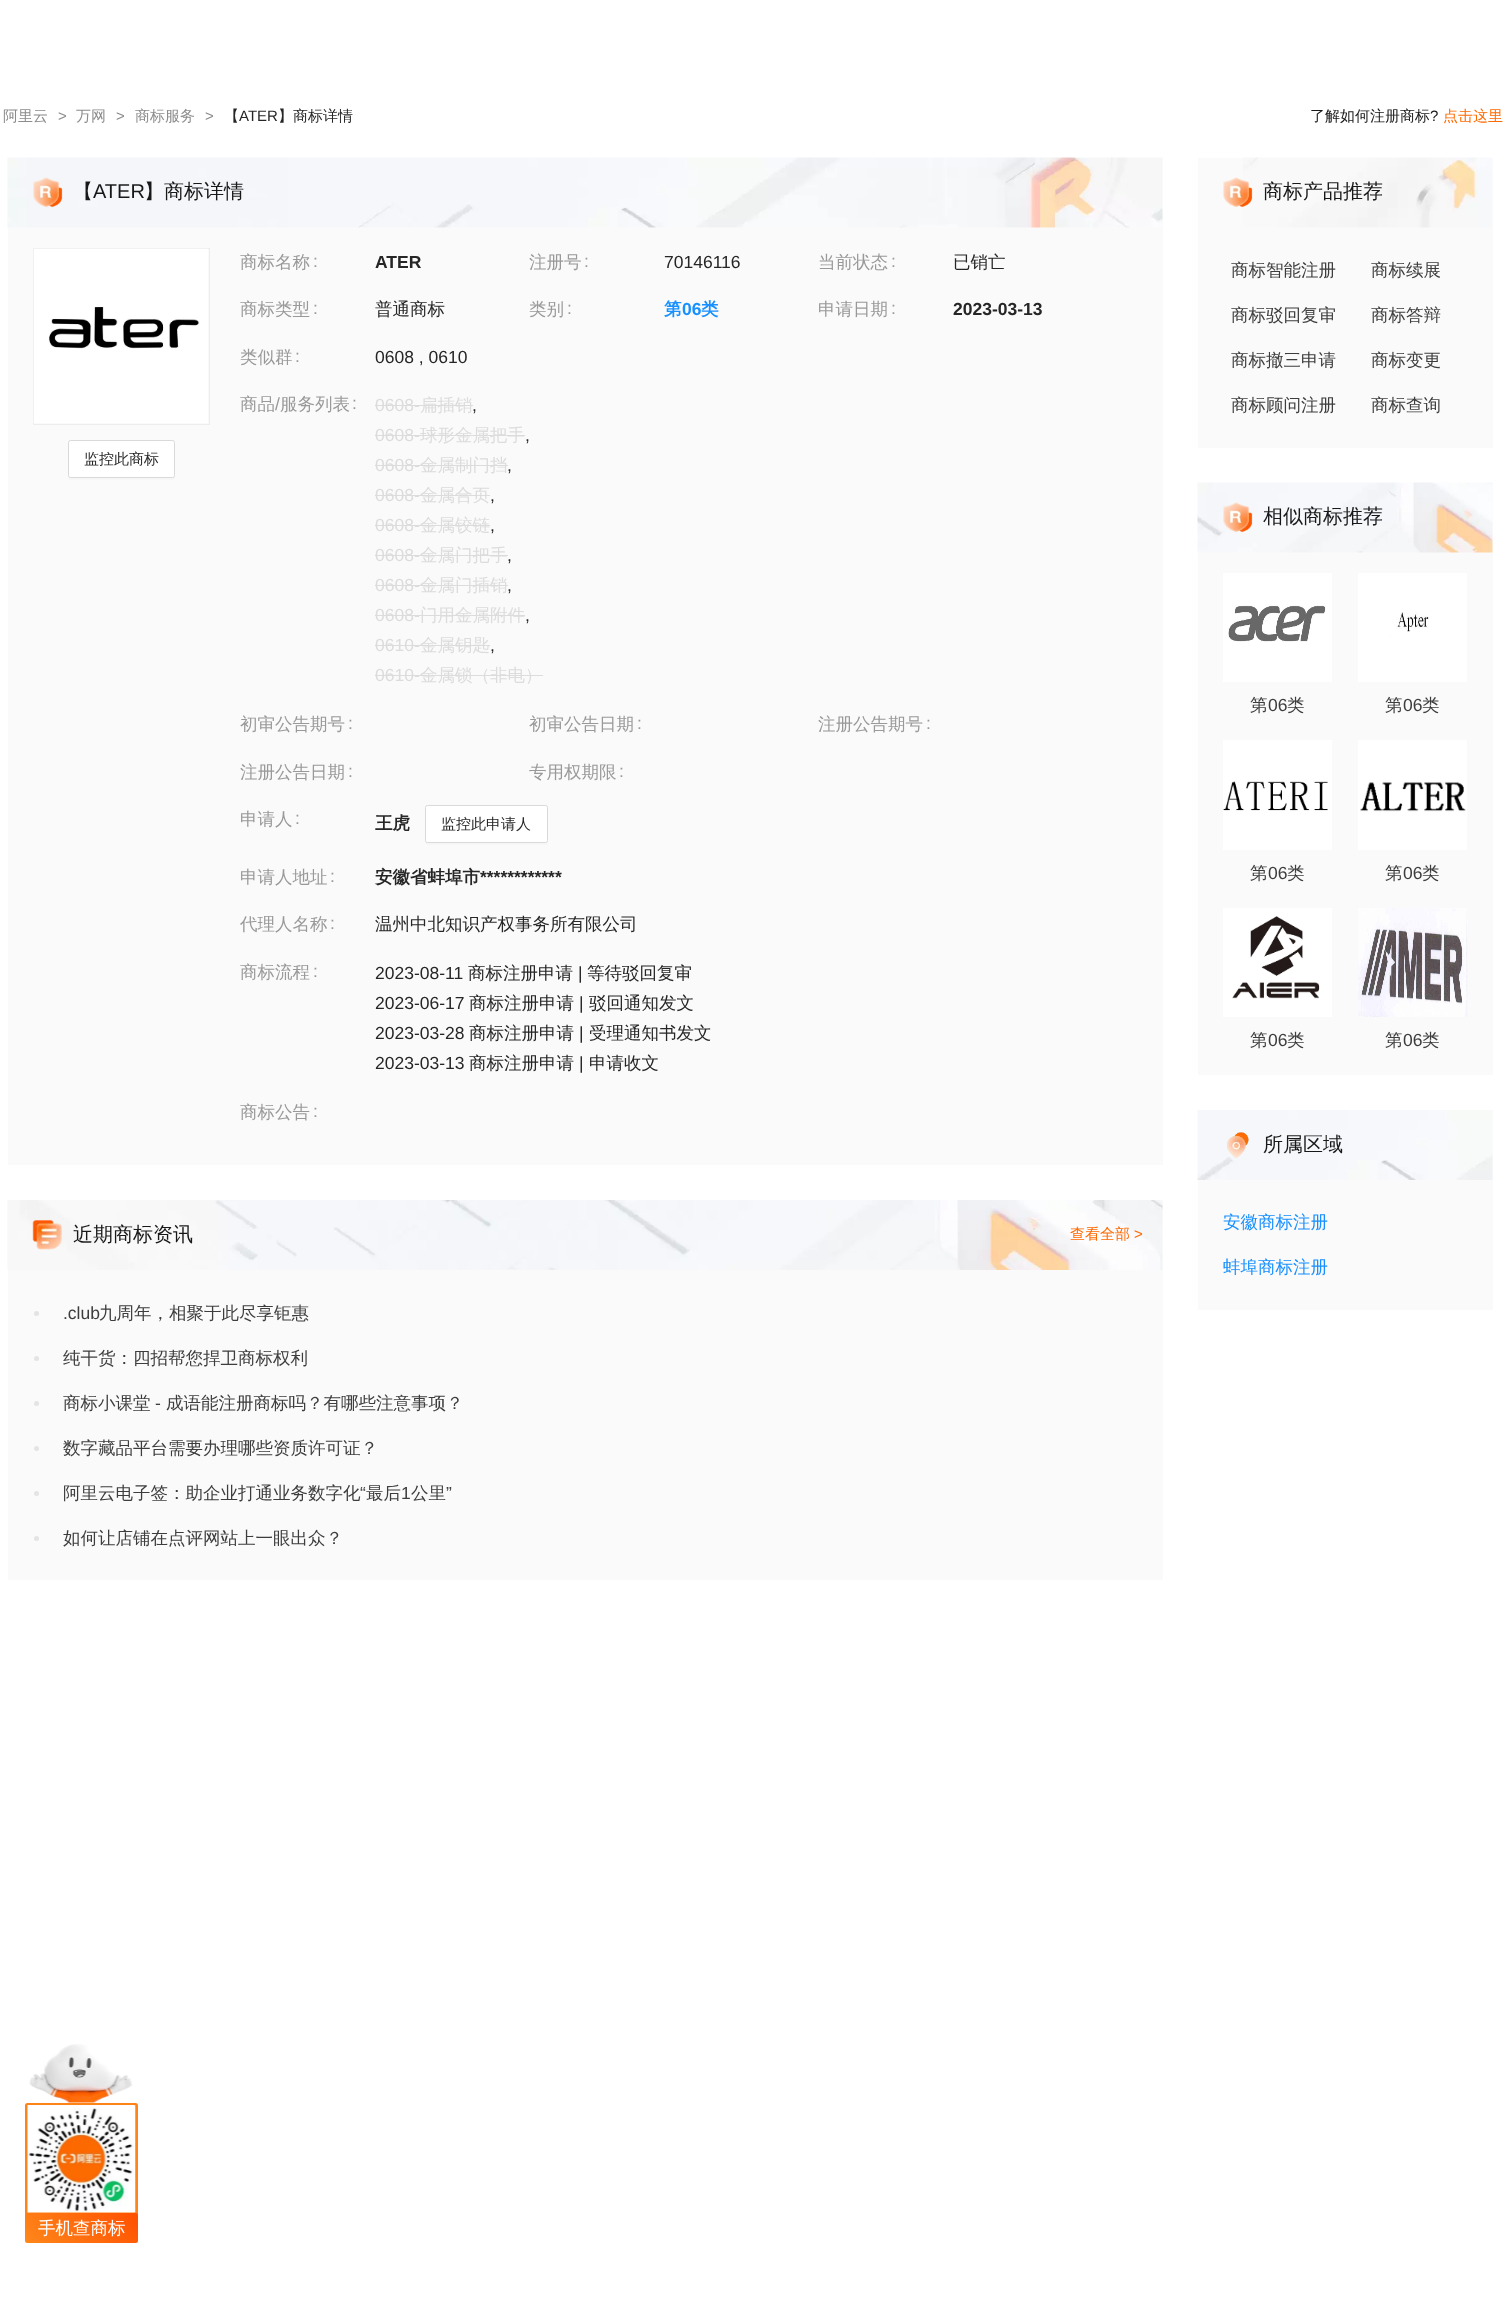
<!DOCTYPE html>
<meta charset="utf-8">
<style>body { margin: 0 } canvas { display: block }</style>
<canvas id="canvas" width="1505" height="2305"></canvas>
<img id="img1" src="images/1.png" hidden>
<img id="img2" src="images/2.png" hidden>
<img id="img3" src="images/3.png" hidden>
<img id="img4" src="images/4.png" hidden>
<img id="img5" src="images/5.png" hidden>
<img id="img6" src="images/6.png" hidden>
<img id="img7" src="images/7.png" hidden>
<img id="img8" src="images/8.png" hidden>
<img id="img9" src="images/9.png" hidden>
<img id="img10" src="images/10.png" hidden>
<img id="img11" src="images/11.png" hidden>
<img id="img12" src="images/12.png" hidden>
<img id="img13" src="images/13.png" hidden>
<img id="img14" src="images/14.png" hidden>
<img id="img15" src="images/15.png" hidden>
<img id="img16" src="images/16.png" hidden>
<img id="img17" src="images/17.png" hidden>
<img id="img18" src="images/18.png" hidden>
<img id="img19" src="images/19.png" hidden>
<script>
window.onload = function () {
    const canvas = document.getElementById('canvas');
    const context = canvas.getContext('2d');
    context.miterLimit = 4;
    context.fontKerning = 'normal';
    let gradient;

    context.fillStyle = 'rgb(255, 255, 255)';
    context.fillRect(0, 0, 1505, 2305);
    context.fillStyle = 'rgb(250, 250, 250)';
    context.fillRect(8, 158, 1155, 1007);
    context.drawImage(document.getElementById('img1'), 7, 157, 1156, 71);
    context.drawImage(document.getElementById('img2'), 33, 177, 30, 31);
    context.strokeStyle = 'rgb(237, 237, 237)';
    context.strokeRect(33.5, 248.5, 176, 176);
    context.drawImage(document.getElementById('img3'), 33, 248, 175, 175);
    context.fillStyle = 'rgb(246, 246, 246)';
    context.beginPath();
    context.moveTo(68, 477);
    context.lineTo(68, 478);
    context.bezierCurveTo(68, 479, 69, 480, 70, 480);
    context.lineTo(172, 480);
    context.bezierCurveTo(174, 480, 175, 479, 175, 478);
    context.lineTo(175, 475);
    context.bezierCurveTo(175, 476, 174, 477, 172, 478);
    context.lineTo(70, 477);
    context.closePath();
    context.fill();
    context.fillStyle = 'rgb(255, 255, 255)';
    context.beginPath();
    context.roundRect(68.5, 440.5, 106, 37, 2);
    context.fill();
    context.strokeStyle = 'rgb(217, 217, 217)';
    context.stroke();
    context.fillStyle = 'rgb(220, 220, 220)';
    context.fillRect(375, 405, 98, 1);
    context.fillRect(375, 435, 150, 1);
    context.fillRect(375, 465, 133, 1);
    context.fillRect(375, 495, 115, 1);
    context.fillRect(375, 525, 115, 1);
    context.fillRect(375, 555, 133, 1);
    context.fillRect(375, 585, 133, 1);
    context.fillRect(375, 615, 150, 1);
    context.fillRect(375, 645, 115, 1);
    context.fillRect(375, 675, 168, 1);
    context.fillStyle = 'rgb(246, 246, 246)';
    context.beginPath();
    context.moveTo(425, 840);
    context.lineTo(425, 842);
    context.bezierCurveTo(425, 844, 426, 845, 428, 845);
    context.lineTo(546, 845);
    context.bezierCurveTo(547, 845, 548, 844, 548, 842);
    context.lineTo(548, 810);
    context.lineTo(548, 809);
    context.lineTo(548, 840);
    context.bezierCurveTo(548, 841, 546, 842, 545, 842);
    context.lineTo(428, 842);
    context.bezierCurveTo(426, 842, 425, 841, 425, 840);
    context.closePath();
    context.fill();
    context.fillStyle = 'rgb(255, 255, 255)';
    context.beginPath();
    context.roundRect(425.5, 805.5, 122, 37, 2);
    context.fill();
    context.stroke();
    context.fillStyle = 'rgb(250, 250, 250)';
    context.fillRect(8, 1200, 1155, 380);
    context.drawImage(document.getElementById('img4'), 7, 1200, 1156, 70);
    context.drawImage(document.getElementById('img5'), 32, 1220, 30, 30);
    context.fillStyle = 'rgb(228, 228, 228)';
    context.beginPath();
    context.arc(36.5, 1313.5, 2.5, 0, 2 * Math.PI);
    context.fill();
    context.beginPath();
    context.arc(36.5, 1358.5, 2.5, 0, 2 * Math.PI);
    context.fill();
    context.beginPath();
    context.arc(36.5, 1403.5, 2.5, 0, 2 * Math.PI);
    context.fill();
    context.beginPath();
    context.arc(36.5, 1448.5, 2.5, 0, 2 * Math.PI);
    context.fill();
    context.beginPath();
    context.arc(36.5, 1493.5, 2.5, 0, 2 * Math.PI);
    context.fill();
    context.beginPath();
    context.arc(36.5, 1538.5, 2.5, 0, 2 * Math.PI);
    context.fill();
    context.fillStyle = 'rgb(250, 250, 250)';
    context.fillRect(1198, 158, 295, 290);
    context.drawImage(document.getElementById('img6'), 1243, 157, 249, 71);
    context.drawImage(document.getElementById('img7'), 1223, 177, 30, 31);
    context.fillRect(1198, 483, 295, 592);
    context.drawImage(document.getElementById('img8'), 1197, 482, 296, 71);
    context.drawImage(document.getElementById('img9'), 1223, 502, 30, 31);
    context.drawImage(document.getElementById('img10'), 1223, 573, 109, 109);
    context.drawImage(document.getElementById('img11'), 1358, 573, 109, 109);
    context.drawImage(document.getElementById('img12'), 1223, 740, 109, 110);
    context.drawImage(document.getElementById('img13'), 1358, 740, 109, 110);
    context.drawImage(document.getElementById('img14'), 1223, 908, 109, 109);
    context.drawImage(document.getElementById('img15'), 1358, 908, 110, 109);
    context.fillRect(1198, 1110, 295, 200);
    context.drawImage(document.getElementById('img16'), 1197, 1110, 296, 70);
    context.drawImage(document.getElementById('img17'), 1227, 1132, 22, 27);
    context.drawImage(document.getElementById('img18'), 29, 2044, 104, 59);
    context.beginPath();
    context.roundRect(26.5, 2104.5, 110, 109, [1, 1, 0, 0]);
    context.strokeStyle = 'rgb(255, 131, 25)';
    context.lineWidth = 3;
    context.stroke();
    context.drawImage(document.getElementById('img19'), 27, 2105, 109, 108);
    gradient = context.createLinearGradient(46, 2263, 117, 2192);
    gradient.addColorStop(0, 'rgb(255, 135, 26)');
    gradient.addColorStop(1, 'rgb(255, 80, 0)');
    context.fillStyle = gradient;
    context.beginPath();
    context.roundRect(25, 2213, 113, 30, 2.5);
    context.fill();
    context.font = '500 15px WenQuanYi Zen Hei';
    context.fillStyle = 'rgb(140, 140, 140)';
    context.fillText('阿里云', 3, 121);
    context.font = '15px Liberation Sans';
    context.fillText('>', 58, 121);
    context.font = '500 15px WenQuanYi Zen Hei';
    context.fillText('万网', 76, 121);
    context.font = '15px Liberation Sans';
    context.fillText('>', 116, 121);
    context.font = '500 15px WenQuanYi Zen Hei';
    context.fillText('商标服务', 135, 121);
    context.font = '15px Liberation Sans';
    context.fillText('>', 205, 121);
    context.font = '500 15px WenQuanYi Zen Hei';
    context.fillStyle = 'rgb(38, 38, 38)';
    context.fillText('【', 224, 121);
    context.font = '15px Liberation Sans';
    context.fillText('ATER', 239, 121);
    context.font = '500 15px WenQuanYi Zen Hei';
    context.fillText('】商标详情', 278, 121);
    context.fillStyle = 'rgb(24, 24, 24)';
    context.fillText('了解如何注册商标', 1310, 121);
    context.font = '15px Liberation Sans';
    context.fillText('?', 1430, 121);
    context.font = '500 15px WenQuanYi Zen Hei';
    context.fillStyle = 'rgb(255, 106, 0)';
    context.fillText('点击这里', 1443, 121);
    context.font = '500 20px WenQuanYi Zen Hei';
    context.fillStyle = 'rgb(24, 24, 24)';
    context.fillText('【', 73, 198);
    context.font = '20px Liberation Sans';
    context.fillText('ATER', 93, 198);
    context.font = '500 20px WenQuanYi Zen Hei';
    context.fillText('】商标详情', 144, 198);
    context.font = '500 15px WenQuanYi Zen Hei';
    context.fillStyle = 'rgb(38, 38, 38)';
    context.fillText('监控此商标', 84, 464);
    context.font = '500 17.5px WenQuanYi Zen Hei';
    context.fillStyle = 'rgb(153, 153, 153)';
    context.fillText('商标名称', 240, 268);
    context.font = '17.5px Liberation Sans';
    context.fillText(':', 313, 267);
    context.font = 'bold 17.5px Liberation Sans';
    context.fillStyle = 'rgb(38, 38, 38)';
    context.fillText('ATER', 375, 268);
    context.font = '500 17.5px WenQuanYi Zen Hei';
    context.fillStyle = 'rgb(153, 153, 153)';
    context.fillText('注册号', 529, 268);
    context.font = '17.5px Liberation Sans';
    context.fillText(':', 584, 267);
    context.fillStyle = 'rgb(38, 38, 38)';
    context.fillText('70146116', 664, 268);
    context.font = '500 17.5px WenQuanYi Zen Hei';
    context.fillStyle = 'rgb(153, 153, 153)';
    context.fillText('当前状态', 818, 268);
    context.font = '17.5px Liberation Sans';
    context.fillText(':', 891, 267);
    context.font = '500 17.5px WenQuanYi Zen Hei';
    context.fillStyle = 'rgb(38, 38, 38)';
    context.fillText('已销亡', 953, 268);
    context.fillStyle = 'rgb(153, 153, 153)';
    context.fillText('商标类型', 240, 315);
    context.font = '17.5px Liberation Sans';
    context.fillText(':', 313, 314);
    context.font = '500 17.5px WenQuanYi Zen Hei';
    context.fillStyle = 'rgb(38, 38, 38)';
    context.fillText('普通商标', 375, 315);
    context.fillStyle = 'rgb(153, 153, 153)';
    context.fillText('类别', 529, 315);
    context.font = '17.5px Liberation Sans';
    context.fillText(':', 567, 314);
    context.font = 'bold 17.5px WenQuanYi Zen Hei';
    context.fillStyle = 'rgb(24, 144, 255)';
    context.fillText('第', 664, 315);
    context.font = 'bold 17.5px Liberation Sans';
    context.fillText('06', 682, 315);
    context.font = 'bold 17.5px WenQuanYi Zen Hei';
    context.fillText('类', 701, 315);
    context.font = '500 17.5px WenQuanYi Zen Hei';
    context.fillStyle = 'rgb(153, 153, 153)';
    context.fillText('申请日期', 818, 315);
    context.font = '17.5px Liberation Sans';
    context.fillText(':', 891, 314);
    context.font = 'bold 17.5px Liberation Sans';
    context.fillStyle = 'rgb(38, 38, 38)';
    context.fillText('2023-03-13', 953, 315);
    context.font = '500 17.5px WenQuanYi Zen Hei';
    context.fillStyle = 'rgb(153, 153, 153)';
    context.fillText('类似群', 240, 363);
    context.font = '17.5px Liberation Sans';
    context.fillText(':', 295, 362);
    context.fillStyle = 'rgb(38, 38, 38)';
    context.fillText('0608 , 0610', 375, 363);
    context.font = '500 17.5px WenQuanYi Zen Hei';
    context.fillStyle = 'rgb(153, 153, 153)';
    context.fillText('商品', 240, 410);
    context.font = '17.5px Liberation Sans';
    context.fillText('/', 275, 410);
    context.font = '500 17.5px WenQuanYi Zen Hei';
    context.fillText('服务列表', 280, 410);
    context.font = '17.5px Liberation Sans';
    context.fillText(':', 352, 409);
    context.fillStyle = 'rgb(220, 220, 220)';
    context.fillText('0608-', 375, 411);
    context.font = '500 17.5px WenQuanYi Zen Hei';
    context.fillText('扁插销', 420, 411);
    context.font = '17.5px Liberation Sans';
    context.fillStyle = 'rgb(38, 38, 38)';
    context.fillText(',', 472, 411);
    context.fillStyle = 'rgb(220, 220, 220)';
    context.fillText('0608-', 375, 441);
    context.font = '500 17.5px WenQuanYi Zen Hei';
    context.fillText('球形金属把手', 420, 441);
    context.font = '17.5px Liberation Sans';
    context.fillStyle = 'rgb(38, 38, 38)';
    context.fillText(',', 525, 441);
    context.fillStyle = 'rgb(220, 220, 220)';
    context.fillText('0608-', 375, 471);
    context.font = '500 17.5px WenQuanYi Zen Hei';
    context.fillText('金属制门挡', 420, 471);
    context.font = '17.5px Liberation Sans';
    context.fillStyle = 'rgb(38, 38, 38)';
    context.fillText(',', 507, 471);
    context.fillStyle = 'rgb(220, 220, 220)';
    context.fillText('0608-', 375, 501);
    context.font = '500 17.5px WenQuanYi Zen Hei';
    context.fillText('金属合页', 420, 501);
    context.font = '17.5px Liberation Sans';
    context.fillStyle = 'rgb(38, 38, 38)';
    context.fillText(',', 490, 501);
    context.fillStyle = 'rgb(220, 220, 220)';
    context.fillText('0608-', 375, 531);
    context.font = '500 17.5px WenQuanYi Zen Hei';
    context.fillText('金属铰链', 420, 531);
    context.font = '17.5px Liberation Sans';
    context.fillStyle = 'rgb(38, 38, 38)';
    context.fillText(',', 490, 531);
    context.fillStyle = 'rgb(220, 220, 220)';
    context.fillText('0608-', 375, 561);
    context.font = '500 17.5px WenQuanYi Zen Hei';
    context.fillText('金属门把手', 420, 561);
    context.font = '17.5px Liberation Sans';
    context.fillStyle = 'rgb(38, 38, 38)';
    context.fillText(',', 507, 561);
    context.fillStyle = 'rgb(220, 220, 220)';
    context.fillText('0608-', 375, 591);
    context.font = '500 17.5px WenQuanYi Zen Hei';
    context.fillText('金属门插销', 420, 591);
    context.font = '17.5px Liberation Sans';
    context.fillStyle = 'rgb(38, 38, 38)';
    context.fillText(',', 507, 591);
    context.fillStyle = 'rgb(220, 220, 220)';
    context.fillText('0608-', 375, 621);
    context.font = '500 17.5px WenQuanYi Zen Hei';
    context.fillText('门用金属附件', 420, 621);
    context.font = '17.5px Liberation Sans';
    context.fillStyle = 'rgb(38, 38, 38)';
    context.fillText(',', 525, 621);
    context.fillStyle = 'rgb(220, 220, 220)';
    context.fillText('0610-', 375, 651);
    context.font = '500 17.5px WenQuanYi Zen Hei';
    context.fillText('金属钥匙', 420, 651);
    context.font = '17.5px Liberation Sans';
    context.fillStyle = 'rgb(38, 38, 38)';
    context.fillText(',', 490, 651);
    context.fillStyle = 'rgb(220, 220, 220)';
    context.fillText('0610-', 375, 681);
    context.font = '500 17.5px WenQuanYi Zen Hei';
    context.fillText('金属锁（非电）', 420, 681);
    context.fillStyle = 'rgb(153, 153, 153)';
    context.fillText('初审公告期号', 240, 730);
    context.font = '17.5px Liberation Sans';
    context.fillText(':', 348, 729);
    context.font = '500 17.5px WenQuanYi Zen Hei';
    context.fillText('初审公告日期', 529, 730);
    context.font = '17.5px Liberation Sans';
    context.fillText(':', 637, 729);
    context.font = '500 17.5px WenQuanYi Zen Hei';
    context.fillText('注册公告期号', 818, 730);
    context.font = '17.5px Liberation Sans';
    context.fillText(':', 926, 729);
    context.font = '500 17.5px WenQuanYi Zen Hei';
    context.fillText('注册公告日期', 240, 778);
    context.font = '17.5px Liberation Sans';
    context.fillText(':', 348, 777);
    context.font = '500 17.5px WenQuanYi Zen Hei';
    context.fillText('专用权期限', 529, 778);
    context.font = '17.5px Liberation Sans';
    context.fillText(':', 619, 777);
    context.font = '500 17.5px WenQuanYi Zen Hei';
    context.fillText('申请人', 240, 825);
    context.font = '17.5px Liberation Sans';
    context.fillText(':', 295, 824);
    context.font = 'bold 17.5px WenQuanYi Zen Hei';
    context.fillStyle = 'rgb(38, 38, 38)';
    context.fillText('王虎', 375, 829);
    context.font = '500 15px WenQuanYi Zen Hei';
    context.fillText('监控此申请人', 441, 829);
    context.font = '500 17.5px WenQuanYi Zen Hei';
    context.fillStyle = 'rgb(153, 153, 153)';
    context.fillText('申请人地址', 240, 883);
    context.font = '17.5px Liberation Sans';
    context.fillText(':', 330, 882);
    context.font = 'bold 17.5px WenQuanYi Zen Hei';
    context.fillStyle = 'rgb(38, 38, 38)';
    context.fillText('安徽省蚌埠市', 375, 883);
    context.font = 'bold 17.5px Liberation Sans';
    context.fillText('************', 480, 883);
    context.font = '500 17.5px WenQuanYi Zen Hei';
    context.fillStyle = 'rgb(153, 153, 153)';
    context.fillText('代理人名称', 240, 930);
    context.font = '17.5px Liberation Sans';
    context.fillText(':', 330, 929);
    context.font = '500 17.5px WenQuanYi Zen Hei';
    context.fillStyle = 'rgb(38, 38, 38)';
    context.fillText('温州中北知识产权事务所有限公司', 375, 930);
    context.fillStyle = 'rgb(153, 153, 153)';
    context.fillText('商标流程', 240, 978);
    context.font = '17.5px Liberation Sans';
    context.fillText(':', 313, 977);
    context.fillStyle = 'rgb(38, 38, 38)';
    context.fillText('2023-08-11', 375, 979);
    context.font = '500 17.5px WenQuanYi Zen Hei';
    context.fillText('商标注册申请', 468, 979);
    context.font = '17.5px Liberation Sans';
    context.fillText('|', 578, 979);
    context.font = '500 17.5px WenQuanYi Zen Hei';
    context.fillText('等待驳回复审', 587, 979);
    context.font = '17.5px Liberation Sans';
    context.fillText('2023-06-17', 375, 1009);
    context.font = '500 17.5px WenQuanYi Zen Hei';
    context.fillText('商标注册申请', 469, 1009);
    context.font = '17.5px Liberation Sans';
    context.fillText('|', 579, 1009);
    context.font = '500 17.5px WenQuanYi Zen Hei';
    context.fillText('驳回通知发文', 589, 1009);
    context.font = '17.5px Liberation Sans';
    context.fillText('2023-03-28', 375, 1039);
    context.font = '500 17.5px WenQuanYi Zen Hei';
    context.fillText('商标注册申请', 469, 1039);
    context.font = '17.5px Liberation Sans';
    context.fillText('|', 579, 1039);
    context.font = '500 17.5px WenQuanYi Zen Hei';
    context.fillText('受理通知书发文', 589, 1039);
    context.font = '17.5px Liberation Sans';
    context.fillText('2023-03-13', 375, 1069);
    context.font = '500 17.5px WenQuanYi Zen Hei';
    context.fillText('商标注册申请', 469, 1069);
    context.font = '17.5px Liberation Sans';
    context.fillText('|', 579, 1069);
    context.font = '500 17.5px WenQuanYi Zen Hei';
    context.fillText('申请收文', 589, 1069);
    context.fillStyle = 'rgb(153, 153, 153)';
    context.fillText('商标公告', 240, 1118);
    context.font = '17.5px Liberation Sans';
    context.fillText(':', 313, 1117);
    context.font = '500 20px WenQuanYi Zen Hei';
    context.fillStyle = 'rgb(24, 24, 24)';
    context.fillText('近期商标资讯', 73, 1241);
    context.font = '500 15px WenQuanYi Zen Hei';
    context.fillStyle = 'rgb(255, 106, 0)';
    context.fillText('查看全部', 1070, 1239);
    context.font = '15px Liberation Sans';
    context.fillText('>', 1134, 1239);
    context.font = '17.5px Liberation Sans';
    context.fillStyle = 'rgb(61, 61, 61)';
    context.fillText('.club', 63, 1319);
    context.font = '500 17.5px WenQuanYi Zen Hei';
    context.fillText('九周年，相聚于此尽享钜惠', 99, 1319);
    context.fillText('纯干货：四招帮您捍卫商标权利', 63, 1364);
    context.fillText('商标小课堂', 63, 1409);
    context.font = '17.5px Liberation Sans';
    context.fillText('-', 155, 1409);
    context.font = '500 17.5px WenQuanYi Zen Hei';
    context.fillText('成语能注册商标吗？有哪些注意事项？', 166, 1409);
    context.fillText('数字藏品平台需要办理哪些资质许可证？', 63, 1454);
    context.fillText('阿里云电子签：助企业打通业务数字化', 63, 1499);
    context.font = '17.5px Liberation Sans';
    context.fillText('“', 360, 1499);
    context.font = '500 17.5px WenQuanYi Zen Hei';
    context.fillText('最后', 366, 1499);
    context.font = '17.5px Liberation Sans';
    context.fillText('1', 401, 1499);
    context.font = '500 17.5px WenQuanYi Zen Hei';
    context.fillText('公里', 411, 1499);
    context.font = '17.5px Liberation Sans';
    context.fillText('”', 446, 1499);
    context.font = '500 17.5px WenQuanYi Zen Hei';
    context.fillText('如何让店铺在点评网站上一眼出众？', 63, 1544);
    context.font = '500 20px WenQuanYi Zen Hei';
    context.fillStyle = 'rgb(24, 24, 24)';
    context.fillText('商标产品推荐', 1263, 198);
    context.font = '500 17.5px WenQuanYi Zen Hei';
    context.fillStyle = 'rgb(61, 61, 61)';
    context.fillText('商标智能注册', 1231, 276);
    context.fillText('商标续展', 1371, 276);
    context.fillText('商标驳回复审', 1231, 321);
    context.fillText('商标答辩', 1371, 321);
    context.fillText('商标撤三申请', 1231, 366);
    context.fillText('商标变更', 1371, 366);
    context.fillText('商标顾问注册', 1231, 411);
    context.fillText('商标查询', 1371, 411);
    context.font = '500 20px WenQuanYi Zen Hei';
    context.fillStyle = 'rgb(24, 24, 24)';
    context.fillText('相似商标推荐', 1263, 523);
    context.font = '500 17.5px WenQuanYi Zen Hei';
    context.fillStyle = 'rgb(61, 61, 61)';
    context.fillText('第', 1250, 711);
    context.font = '17.5px Liberation Sans';
    context.fillText('06', 1268, 711);
    context.font = '500 17.5px WenQuanYi Zen Hei';
    context.fillText('类', 1287, 711);
    context.fillText('第', 1385, 711);
    context.font = '17.5px Liberation Sans';
    context.fillText('06', 1403, 711);
    context.font = '500 17.5px WenQuanYi Zen Hei';
    context.fillText('类', 1422, 711);
    context.fillText('第', 1250, 879);
    context.font = '17.5px Liberation Sans';
    context.fillText('06', 1268, 879);
    context.font = '500 17.5px WenQuanYi Zen Hei';
    context.fillText('类', 1287, 879);
    context.fillText('第', 1385, 879);
    context.font = '17.5px Liberation Sans';
    context.fillText('06', 1403, 879);
    context.font = '500 17.5px WenQuanYi Zen Hei';
    context.fillText('类', 1422, 879);
    context.fillText('第', 1250, 1046);
    context.font = '17.5px Liberation Sans';
    context.fillText('06', 1268, 1046);
    context.font = '500 17.5px WenQuanYi Zen Hei';
    context.fillText('类', 1287, 1046);
    context.fillText('第', 1385, 1046);
    context.font = '17.5px Liberation Sans';
    context.fillText('06', 1403, 1046);
    context.font = '500 17.5px WenQuanYi Zen Hei';
    context.fillText('类', 1422, 1046);
    context.font = '500 20px WenQuanYi Zen Hei';
    context.fillStyle = 'rgb(24, 24, 24)';
    context.fillText('所属区域', 1263, 1151);
    context.font = '500 17.5px WenQuanYi Zen Hei';
    context.fillStyle = 'rgb(24, 144, 255)';
    context.fillText('安徽商标注册', 1223, 1228);
    context.fillText('蚌埠商标注册', 1223, 1273);
    context.fillStyle = 'rgb(255, 255, 255)';
    context.fillText('手机查商标', 38, 2234);
};
</script>
